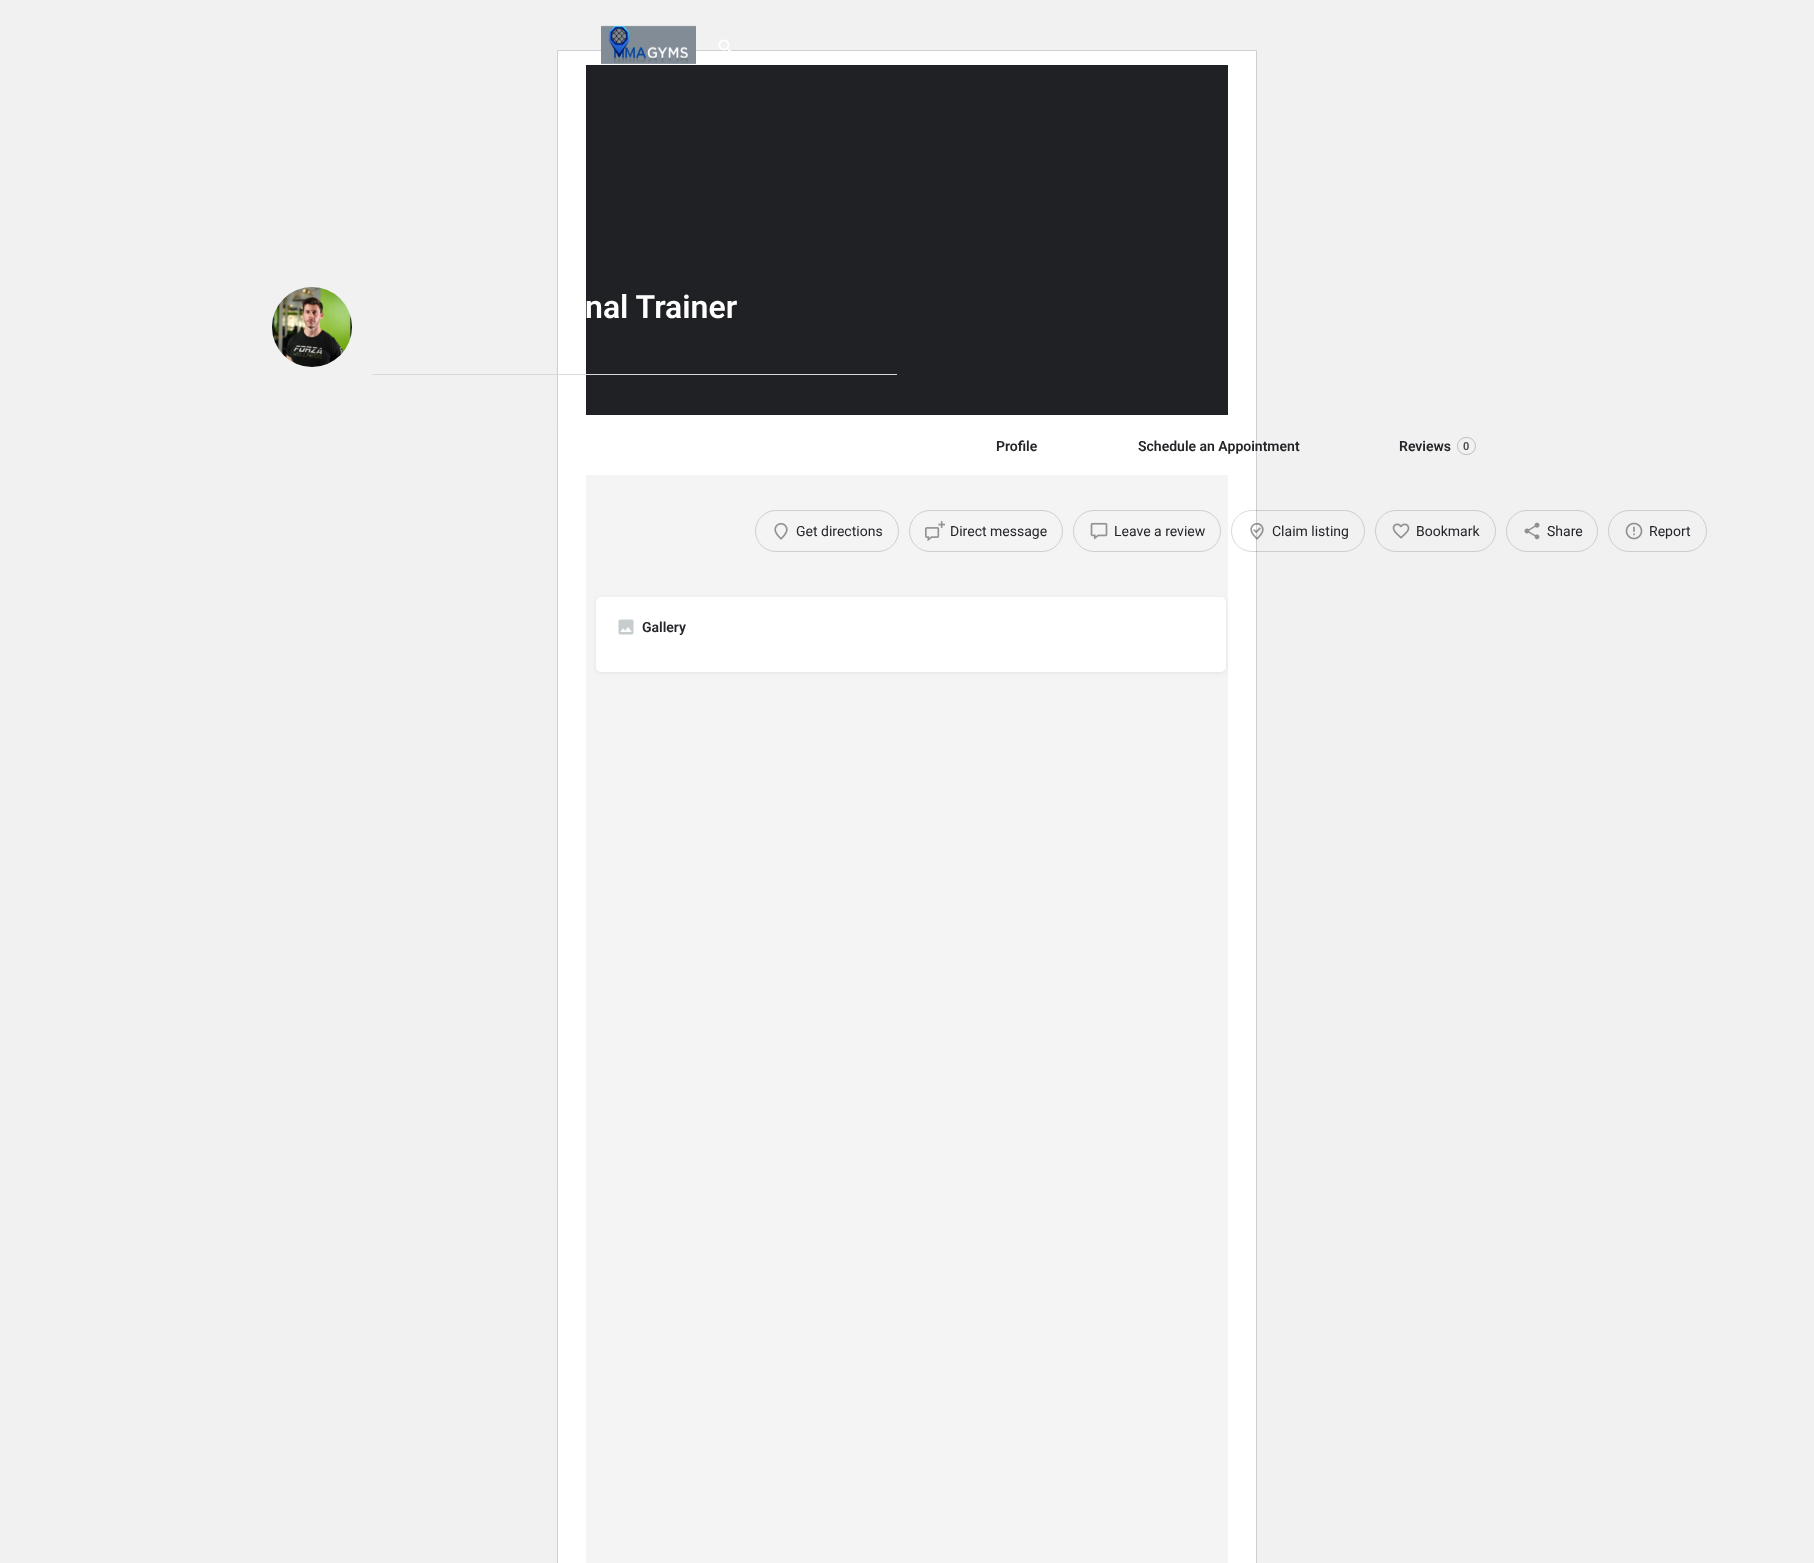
<!DOCTYPE html>
<meta charset="utf-8">
<style>body { margin: 0 } canvas { display: block }</style>
<canvas id="canvas" width="1814" height="1563"></canvas>
<img id="img1" src="images/1.png" hidden>
<img id="img2" src="images/2.png" hidden>
<img id="img3" src="images/3.png" hidden>
<img id="img4" src="images/4.png" hidden>
<img id="img5" src="images/5.png" hidden>
<img id="img6" src="images/6.png" hidden>
<img id="img7" src="images/7.png" hidden>
<img id="img8" src="images/8.png" hidden>
<img id="img9" src="images/9.png" hidden>
<img id="img10" src="images/10.png" hidden>
<img id="img11" src="images/11.png" hidden>
<script>
window.onload = function () {
    const canvas = document.getElementById('canvas');
    const context = canvas.getContext('2d');
    context.miterLimit = 4;
    context.fontKerning = 'normal';

    context.fillStyle = 'rgb(241, 241, 241)';
    context.fillRect(0, 0, 1814, 1563);
    context.fillStyle = 'rgb(255, 255, 255)';
    context.beginPath();
    context.rect(557.5, 50.5, 699, 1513);
    context.fill();
    context.strokeStyle = 'rgb(204, 208, 212)';
    context.stroke();
    context.fillStyle = 'rgb(244, 244, 244)';
    context.fillRect(586, 475, 642, 1088);
    context.drawImage(document.getElementById('img1'), 601, 25, 95, 39);
    context.drawImage(document.getElementById('img2'), 718, 39, 13, 12);
    context.fillStyle = 'rgb(32, 33, 37)';
    context.fillRect(586, 65, 642, 350);
    context.fillStyle = 'rgb(221, 229, 230)';
    context.beginPath();
    context.arc(312, 327, 40, 0, 2 * Math.PI);
    context.fill();
    context.drawImage(document.getElementById('img3'), 272, 287, 80, 80);
    context.fillStyle = 'rgb(218, 218, 218)';
    context.fillRect(372, 374, 525, 1);
    context.beginPath();
    context.roundRect(1457.5, 437.5, 18, 17, 8.5);
    context.strokeStyle = 'rgb(186, 193, 193)';
    context.stroke();
    context.beginPath();
    context.roundRect(755.5, 510.5, 143, 41, 20.5);
    context.strokeStyle = 'rgb(207, 207, 207)';
    context.stroke();
    context.drawImage(document.getElementById('img4'), 774, 523, 14, 17);
    context.beginPath();
    context.roundRect(909.5, 510.5, 153, 41, 20.5);
    context.stroke();
    context.drawImage(document.getElementById('img5'), 925, 521, 20, 20);
    context.beginPath();
    context.roundRect(1073.5, 510.5, 147, 41, 20.5);
    context.stroke();
    context.drawImage(document.getElementById('img6'), 1090, 522, 18, 18);
    context.beginPath();
    context.roundRect(1231.5, 510.5, 133, 41, 20.5);
    context.strokeStyle = 'rgba(0, 0, 0, 0.15)';
    context.stroke();
    context.drawImage(document.getElementById('img7'), 1250, 523, 14, 17);
    context.beginPath();
    context.roundRect(1375.5, 510.5, 120, 41, 20.5);
    context.strokeStyle = 'rgb(205, 205, 205)';
    context.stroke();
    context.drawImage(document.getElementById('img8'), 1392, 523, 18, 16);
    context.beginPath();
    context.roundRect(1506.5, 510.5, 91, 41, 20.5);
    context.stroke();
    context.drawImage(document.getElementById('img9'), 1524, 522, 16, 18);
    context.beginPath();
    context.roundRect(1608.5, 510.5, 98, 41, 20.5);
    context.stroke();
    context.drawImage(document.getElementById('img10'), 1625, 522, 18, 18);
    context.fillStyle = 'rgba(0, 0, 0, 0.07)';
    context.filter = 'blur(2px)';
    context.beginPath();
    context.roundRect(596, 598, 630, 75, 5);
    context.fill();
    context.filter = 'none';
    context.fillStyle = 'rgb(255, 255, 255)';
    context.beginPath();
    context.roundRect(596, 597, 630, 75, 5);
    context.fill();
    context.drawImage(document.getElementById('img11'), 618, 619, 16, 16);
    context.font = '600 32px Roboto';
    context.fillText('nal Trainer', 585, 318);
    context.font = '600 14px Roboto';
    context.fillStyle = 'rgb(36, 36, 41)';
    context.fillText('Profile', 996, 451);
    context.fillText('Schedule an Appointment', 1138, 451);
    context.fillText('Reviews', 1399, 451);
    context.font = '600 11px Roboto';
    context.fillStyle = 'rgb(72, 72, 72)';
    context.fillText('0', 1463, 450);
    context.font = '14px Roboto';
    context.fillStyle = 'rgb(36, 36, 41)';
    context.fillText('Get directions', 796, 536);
    context.fillText('Direct message', 950, 536);
    context.fillText('Leave a review', 1114, 536);
    context.fillText('Claim listing', 1272, 536);
    context.fillText('Bookmark', 1416, 536);
    context.fillText('Share', 1547, 536);
    context.fillText('Report', 1649, 536);
    context.font = '600 14px Roboto';
    context.fillText('Gallery', 642, 632);
};
</script>
